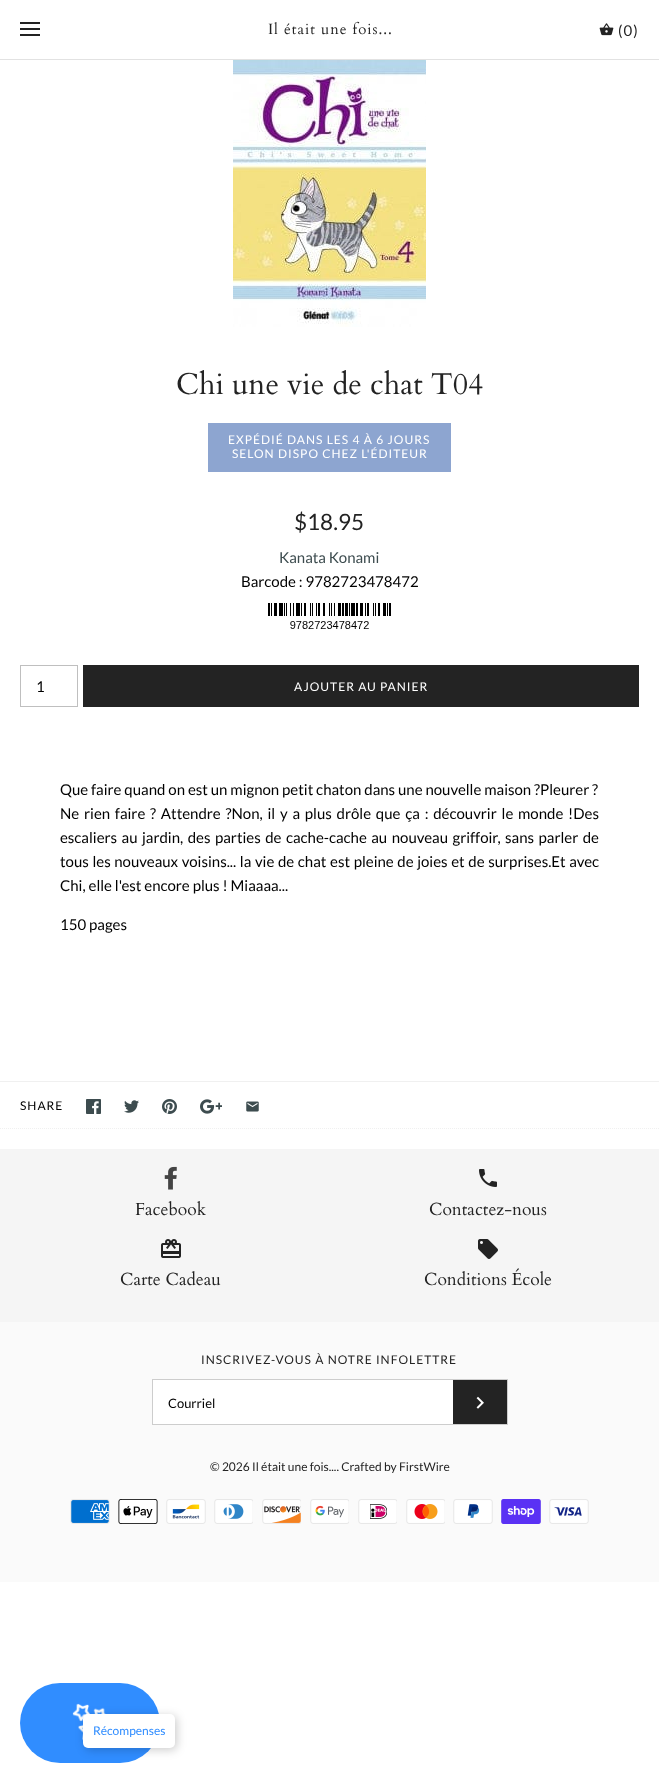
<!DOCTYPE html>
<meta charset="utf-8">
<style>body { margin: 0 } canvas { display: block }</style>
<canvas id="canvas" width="659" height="1783"></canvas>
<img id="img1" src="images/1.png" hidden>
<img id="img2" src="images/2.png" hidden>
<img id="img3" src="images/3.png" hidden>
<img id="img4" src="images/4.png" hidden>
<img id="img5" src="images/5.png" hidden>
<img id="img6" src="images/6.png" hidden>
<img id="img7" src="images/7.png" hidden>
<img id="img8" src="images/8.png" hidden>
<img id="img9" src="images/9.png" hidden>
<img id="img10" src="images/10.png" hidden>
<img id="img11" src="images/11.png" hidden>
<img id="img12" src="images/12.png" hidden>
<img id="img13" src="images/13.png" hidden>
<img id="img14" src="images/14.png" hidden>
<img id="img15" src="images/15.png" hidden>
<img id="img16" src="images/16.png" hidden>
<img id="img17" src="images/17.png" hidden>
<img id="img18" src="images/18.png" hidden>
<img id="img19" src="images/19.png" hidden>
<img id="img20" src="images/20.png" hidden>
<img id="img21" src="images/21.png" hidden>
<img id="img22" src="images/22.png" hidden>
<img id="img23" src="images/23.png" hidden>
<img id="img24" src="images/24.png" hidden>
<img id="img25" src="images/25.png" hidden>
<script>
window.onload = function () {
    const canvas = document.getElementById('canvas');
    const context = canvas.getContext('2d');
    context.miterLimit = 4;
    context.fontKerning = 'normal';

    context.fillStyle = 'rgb(255, 255, 255)';
    context.fillRect(0, 0, 659, 1783);
    context.fillStyle = 'rgb(226, 226, 226)';
    context.fillRect(0, 59, 659, 1);
    context.fillStyle = 'rgb(35, 35, 35)';
    context.fillRect(20, 22, 20, 2);
    context.fillRect(20, 28, 20, 2);
    context.fillRect(20, 34, 20, 2);
    context.drawImage(document.getElementById('img1'), 599, 23, 15, 13);
    context.drawImage(document.getElementById('img2'), 233, 60, 193, 267);
    context.fillStyle = 'rgb(141, 165, 208)';
    context.fillRect(208, 423, 243, 49);
    context.drawImage(document.getElementById('img3'), 268, 603, 123, 26);
    context.strokeStyle = 'rgb(191, 191, 191)';
    context.strokeRect(20.5, 665.5, 57, 41);
    context.fillStyle = 'rgb(35, 35, 35)';
    context.fillRect(83, 665, 556, 42);
    context.fillStyle = 'rgb(240, 240, 240)';
    context.fillRect(0, 1081, 659, 1);
    context.beginPath();
    context.moveTo(0, 1128.5);
    context.lineTo(659, 1128.5);
    context.strokeStyle = 'rgb(240, 240, 240)';
    context.setLineDash([1, 1]);
    context.stroke();
    context.drawImage(document.getElementById('img4'), 86, 1099, 15, 15);
    context.drawImage(document.getElementById('img5'), 124, 1100, 15, 13);
    context.drawImage(document.getElementById('img6'), 162, 1099, 15, 15);
    context.drawImage(document.getElementById('img7'), 200, 1099, 22, 15);
    context.drawImage(document.getElementById('img8'), 246, 1101, 13, 11);
    context.fillStyle = 'rgb(250, 250, 250)';
    context.fillRect(0, 1322, 659, 260);
    context.fillStyle = 'rgb(245, 245, 245)';
    context.fillRect(0, 1149, 659, 173);
    context.drawImage(document.getElementById('img9'), 164, 1166, 13, 24);
    context.drawImage(document.getElementById('img10'), 479, 1169, 18, 18);
    context.drawImage(document.getElementById('img11'), 161, 1239, 20, 19);
    context.drawImage(document.getElementById('img12'), 478, 1239, 20, 20);
    context.fillStyle = 'rgb(255, 255, 255)';
    context.fillRect(153, 1380, 300, 44);
    context.strokeStyle = 'rgb(205, 205, 205)';
    context.setLineDash([]);
    context.strokeRect(152.5, 1379.5, 355, 45);
    context.fillStyle = 'rgb(35, 35, 35)';
    context.fillRect(453, 1380, 54, 44);
    context.drawImage(document.getElementById('img13'), 476, 1396, 8, 13);
    context.drawImage(document.getElementById('img14'), 70, 1499, 40, 25);
    context.drawImage(document.getElementById('img15'), 118, 1499, 40, 25);
    context.drawImage(document.getElementById('img16'), 166, 1499, 40, 25);
    context.drawImage(document.getElementById('img17'), 214, 1499, 39, 25);
    context.drawImage(document.getElementById('img18'), 262, 1499, 39, 25);
    context.drawImage(document.getElementById('img19'), 310, 1499, 39, 25);
    context.drawImage(document.getElementById('img20'), 358, 1499, 39, 25);
    context.drawImage(document.getElementById('img21'), 406, 1499, 39, 25);
    context.drawImage(document.getElementById('img22'), 453, 1499, 40, 25);
    context.drawImage(document.getElementById('img23'), 501, 1499, 40, 25);
    context.drawImage(document.getElementById('img24'), 549, 1499, 40, 25);
    context.fillStyle = 'rgb(48, 141, 255)';
    context.beginPath();
    context.roundRect(20, 1683, 140, 80, 40);
    context.fill();
    context.drawImage(document.getElementById('img25'), 72, 1703, 34, 38);
    context.fillStyle = 'rgba(0, 0, 0, 0.2)';
    context.filter = 'blur(5px)';
    context.beginPath();
    context.roundRect(85, 1716, 92, 34, 5);
    context.fill();
    context.filter = 'none';
    context.fillStyle = 'rgb(255, 255, 255)';
    context.beginPath();
    context.roundRect(83, 1714, 92, 34, 5);
    context.fill();
    context.letterSpacing = '1px';
    context.font = '15px Cardo';
    context.fillStyle = 'rgb(35, 35, 35)';
    context.fillText('Il était une fois...', 268, 34);
    context.font = '15px Lato';
    context.fillText('(0)', 618, 36);
    context.letterSpacing = '0px';
    context.font = '30px Cardo';
    context.fillText('Chi une vie de chat T04', 176, 394);
    context.letterSpacing = '1px';
    context.font = '12px Lato';
    context.fillStyle = 'rgb(255, 255, 255)';
    context.fillText('EXPÉDIÉ DANS LES 4 À 6 JOURS', 228, 444);
    context.fillText('SELON DISPO CHEZ L\'ÉDITEUR', 232, 458);
    context.letterSpacing = '0px';
    context.font = '22.5px Lato';
    context.fillStyle = 'rgb(35, 35, 35)';
    context.fillText('$18.95', 294, 530);
    context.font = '15px Lato';
    context.fillStyle = 'rgb(61, 76, 79)';
    context.fillText('Kanata Konami', 279, 563);
    context.fillStyle = 'rgb(0, 0, 0)';
    context.fillText('Barcode : 9782723478472', 241, 587);
    context.fillText('1', 36, 692);
    context.letterSpacing = '1px';
    context.font = '12px Lato';
    context.fillStyle = 'rgb(255, 255, 255)';
    context.fillText('AJOUTER AU PANIER', 294, 691);
    context.letterSpacing = '0px';
    context.font = '15px Lato';
    context.fillStyle = 'rgb(0, 0, 0)';
    context.fillText('Que faire quand on est un mignon petit chaton dans une nouvelle maison ?Pleurer ?', 60, 795);
    context.wordSpacing = '1.9px';
    context.fillText('Ne rien faire ? Attendre ?Non, il y a plus drôle que ça : découvrir le monde !Des', 60, 819);
    context.wordSpacing = '1.6px';
    context.fillText('escaliers au jardin, des parties de cache-cache au nouveau griffoir, sans parler de', 60, 843);
    context.wordSpacing = '0.75px';
    context.fillText('tous les nouveaux voisins... la vie de chat est pleine de joies et de surprises.Et avec', 60, 867);
    context.wordSpacing = '0px';
    context.fillText('Chi, elle l\'est encore plus ! Miaaaa...', 60, 891);
    context.fillText('150 pages', 60, 930);
    context.letterSpacing = '1px';
    context.font = '12px Lato';
    context.fillText('SHARE', 20, 1110);
    context.letterSpacing = '0px';
    context.font = '17.5px Cardo';
    context.fillStyle = 'rgb(35, 35, 35)';
    context.fillText('Facebook', 135, 1215);
    context.fillText('Contactez-nous', 429, 1215);
    context.fillText('Carte Cadeau', 120, 1285);
    context.fillText('Conditions École', 424, 1285);
    context.letterSpacing = '1px';
    context.font = '12px Lato';
    context.fillText('INSCRIVEZ-VOUS À NOTRE INFOLETTRE', 201, 1364);
    context.letterSpacing = '0px';
    context.font = '13px Lato';
    context.fillStyle = 'rgb(0, 0, 0)';
    context.fillText('Courriel', 168, 1408);
    context.font = '12px Lato';
    context.fillStyle = 'rgb(35, 35, 35)';
    context.fillText('© 2026 Il était une fois.... Crafted by FirstWire', 210, 1471);
    context.fillStyle = 'rgb(48, 141, 255)';
    context.fillText('Récompenses', 93, 1735);
};
</script>
